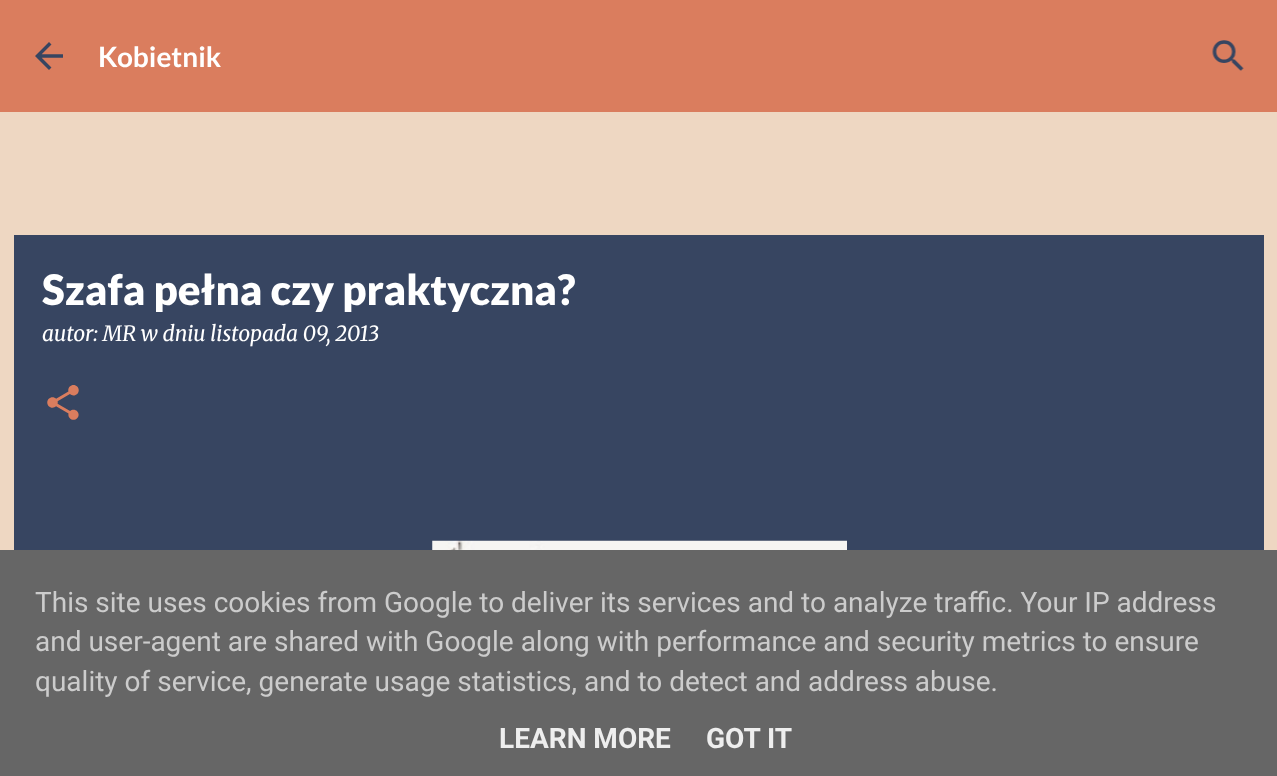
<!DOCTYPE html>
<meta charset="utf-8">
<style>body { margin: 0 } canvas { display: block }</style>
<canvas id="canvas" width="1277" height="776"></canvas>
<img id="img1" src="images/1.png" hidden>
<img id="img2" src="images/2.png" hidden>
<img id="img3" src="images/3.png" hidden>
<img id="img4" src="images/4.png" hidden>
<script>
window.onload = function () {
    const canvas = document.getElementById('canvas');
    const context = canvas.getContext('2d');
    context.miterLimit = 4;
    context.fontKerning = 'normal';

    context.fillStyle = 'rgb(238, 215, 194)';
    context.fillRect(0, 0, 1277, 776);
    context.fillStyle = 'rgb(218, 125, 94)';
    context.fillRect(0, 0, 1277, 112);
    context.drawImage(document.getElementById('img1'), 35, 42, 28, 28);
    context.drawImage(document.getElementById('img2'), 1212, 40, 32, 31);
    context.fillStyle = 'rgb(55, 69, 97)';
    context.fillRect(14, 235, 1250, 315);
    context.drawImage(document.getElementById('img3'), 47, 385, 32, 35);
    context.drawImage(document.getElementById('img4'), 432, 540, 415, 10);
    context.fillStyle = 'rgb(102, 102, 102)';
    context.fillRect(0, 550, 1277, 226);
    context.font = 'bold 28px Lato';
    context.fillStyle = 'rgb(255, 255, 255)';
    context.fillText('Kobietnik', 98, 67);
    context.font = '900 42px Lato';
    context.fillText('Szafa pełna czy praktyczna?', 42, 305);
    context.font = 'italic 21px Merriweather';
    context.fillText('autor: MR w dniu listopada 09, 2013', 42, 341);
    context.font = '28px Roboto';
    context.fillStyle = 'rgb(204, 204, 204)';
    context.fillText('This site uses cookies from Google to deliver its services and to analyze traffic. Your IP address', 35, 612);
    context.fillText('and user-agent are shared with Google along with performance and security metrics to ensure', 35, 651);
    context.fillText('quality of service, generate usage statistics, and to detect and address abuse.', 35, 691);
    context.font = 'bold 28px Roboto';
    context.fillStyle = 'rgb(238, 238, 238)';
    context.fillText('LEARN MORE', 499, 748);
    context.fillText('GOT IT', 706, 748);
};
</script>
